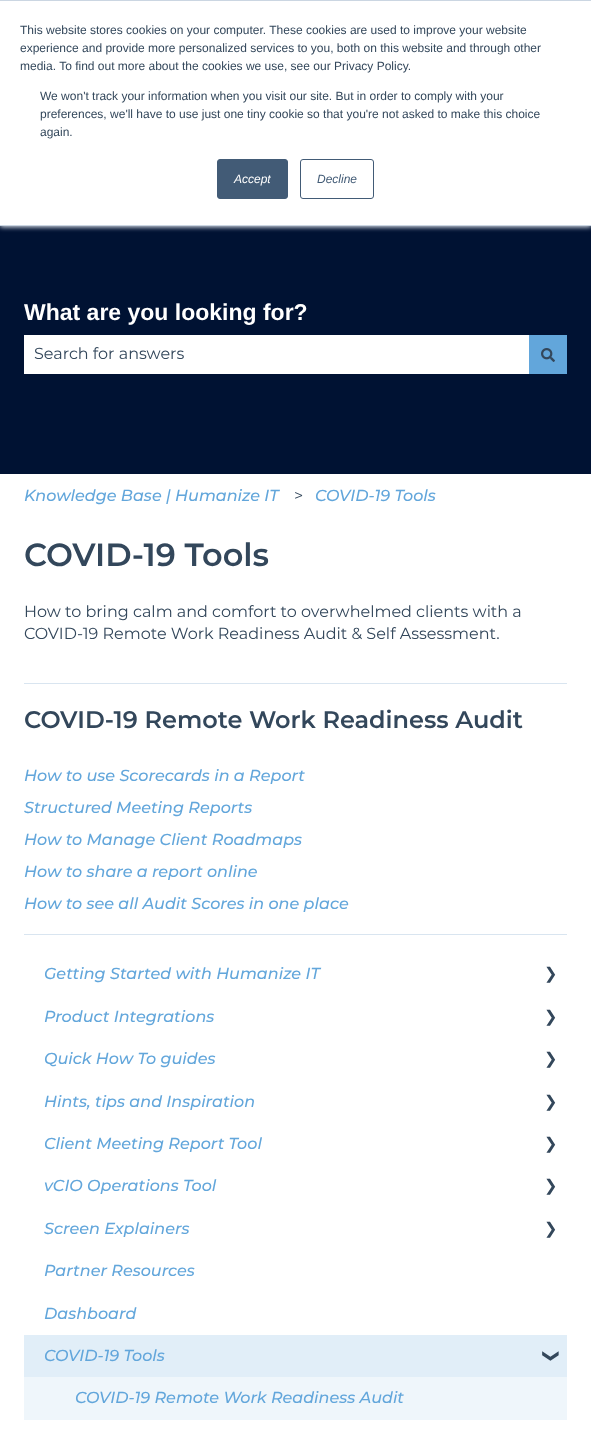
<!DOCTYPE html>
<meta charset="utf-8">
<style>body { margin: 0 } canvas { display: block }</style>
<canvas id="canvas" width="591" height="1431"></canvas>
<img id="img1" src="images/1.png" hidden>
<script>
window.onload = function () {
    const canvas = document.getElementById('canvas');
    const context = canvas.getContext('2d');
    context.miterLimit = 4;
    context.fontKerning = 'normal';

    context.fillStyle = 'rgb(255, 255, 255)';
    context.fillRect(0, 0, 591, 1431);
    context.fillStyle = 'rgb(0, 18, 51)';
    context.fillRect(0, 226, 591, 248);
    context.fillStyle = 'rgb(234, 240, 246)';
    context.filter = 'blur(2.5px)';
    context.beginPath();
    context.rect(0, 1, 591, 226);
    context.fill();
    context.filter = 'none';
    context.fillStyle = 'rgb(255, 255, 255)';
    context.fillRect(0, 1, 591, 224);
    context.fillStyle = 'rgb(203, 214, 226)';
    context.fillRect(0, 0, 591, 1);
    context.fillRect(0, 225, 591, 1);
    context.fillStyle = 'rgb(66, 91, 118)';
    context.beginPath();
    context.roundRect(217.5, 159.5, 70, 39, 2.5);
    context.fill();
    context.strokeStyle = 'rgb(66, 91, 118)';
    context.stroke();
    context.beginPath();
    context.roundRect(300.5, 159.5, 73, 39, 2.5);
    context.stroke();
    context.fillStyle = 'rgb(255, 255, 255)';
    context.fillRect(24, 335, 505, 39);
    context.fillStyle = 'rgb(98, 166, 219)';
    context.fillRect(529, 335, 38, 39);
    context.drawImage(document.getElementById('img1'), 541, 348, 14, 14);
    context.fillStyle = 'rgb(217, 229, 240)';
    context.fillRect(24, 683, 543, 1);
    context.fillRect(24, 934, 543, 1);
    context.fillStyle = 'rgb(239, 246, 251)';
    context.fillRect(24, 1377, 543, 43);
    context.fillStyle = 'rgb(225, 238, 248)';
    context.fillRect(24, 1335, 543, 42);
    context.font = '12px Liberation Sans';
    context.fillStyle = 'rgb(51, 71, 91)';
    context.fillText('This website stores cookies on your computer. These cookies are used to improve your website', 20, 34);
    context.fillText('experience and provide more personalized services to you, both on this website and through other', 20, 52);
    context.fillText('media. To find out more about the cookies we use, see our Privacy Policy.', 20, 70);
    context.fillText('We won\'t track your information when you visit our site. But in order to comply with your', 40, 100);
    context.fillText('preferences, we\'ll have to use just one tiny cookie so that you\'re not asked to make this choice', 40, 118);
    context.fillText('again.', 40, 136);
    context.font = 'italic 12px Liberation Sans';
    context.fillStyle = 'rgb(255, 255, 255)';
    context.fillText('Accept', 234, 183);
    context.fillStyle = 'rgb(66, 91, 118)';
    context.fillText('Decline', 317, 183);
    context.font = 'bold 23px Liberation Sans';
    context.fillStyle = 'rgb(255, 255, 255)';
    context.fillText('What are you looking for?', 24, 320);
    context.font = '16px Montserrat';
    context.fillStyle = 'rgb(51, 71, 91)';
    context.fillText('Search for answers', 34, 359);
    context.font = 'italic 500 16px Montserrat';
    context.fillStyle = 'rgb(98, 166, 219)';
    context.fillText('Knowledge Base | Humanize IT', 24, 501);
    context.font = '16px Montserrat';
    context.fillStyle = 'rgb(51, 71, 91)';
    context.fillText('>', 294, 501);
    context.font = 'italic 500 16px Montserrat';
    context.fillStyle = 'rgb(98, 166, 219)';
    context.fillText('COVID-19 Tools', 315, 501);
    context.font = '600 32px Montserrat';
    context.fillStyle = 'rgb(51, 71, 91)';
    context.fillText('COVID-19 Tools', 24, 566);
    context.font = '16px Montserrat';
    context.fillText('How to bring calm and comfort to overwhelmed clients with a', 24, 617);
    context.fillText('COVID-19 Remote Work Readiness Audit & Self Assessment.', 24, 639);
    context.font = '600 24px Montserrat';
    context.fillText('COVID-19 Remote Work Readiness Audit', 24, 728);
    context.font = 'italic 500 16px Montserrat';
    context.fillStyle = 'rgb(98, 166, 219)';
    context.fillText('How to use Scorecards in a Report', 24, 781);
    context.fillText('Structured Meeting Reports', 24, 813);
    context.fillText('How to Manage Client Roadmaps', 24, 845);
    context.fillText('How to share a report online', 24, 877);
    context.fillText('How to see all Audit Scores in one place', 24, 909);
    context.fillText('Getting Started with Humanize IT', 44, 979);
    context.font = '16px DejaVu Sans';
    context.fillStyle = 'rgb(51, 71, 91)';
    context.fillText('❯', 544, 979);
    context.font = 'italic 500 16px Montserrat';
    context.fillStyle = 'rgb(98, 166, 219)';
    context.fillText('Product Integrations', 44, 1022);
    context.font = '16px DejaVu Sans';
    context.fillStyle = 'rgb(51, 71, 91)';
    context.fillText('❯', 544, 1022);
    context.font = 'italic 500 16px Montserrat';
    context.fillStyle = 'rgb(98, 166, 219)';
    context.fillText('Quick How To guides', 44, 1064);
    context.font = '16px DejaVu Sans';
    context.fillStyle = 'rgb(51, 71, 91)';
    context.fillText('❯', 544, 1064);
    context.font = 'italic 500 16px Montserrat';
    context.fillStyle = 'rgb(98, 166, 219)';
    context.fillText('Hints, tips and Inspiration', 44, 1107);
    context.font = '16px DejaVu Sans';
    context.fillStyle = 'rgb(51, 71, 91)';
    context.fillText('❯', 544, 1107);
    context.font = 'italic 500 16px Montserrat';
    context.fillStyle = 'rgb(98, 166, 219)';
    context.fillText('Client Meeting Report Tool', 44, 1149);
    context.font = '16px DejaVu Sans';
    context.fillStyle = 'rgb(51, 71, 91)';
    context.fillText('❯', 544, 1149);
    context.font = 'italic 500 16px Montserrat';
    context.fillStyle = 'rgb(98, 166, 219)';
    context.fillText('vCIO Operations Tool', 44, 1191);
    context.font = '16px DejaVu Sans';
    context.fillStyle = 'rgb(51, 71, 91)';
    context.fillText('❯', 544, 1191);
    context.font = 'italic 500 16px Montserrat';
    context.fillStyle = 'rgb(98, 166, 219)';
    context.fillText('Screen Explainers', 44, 1234);
    context.font = '16px DejaVu Sans';
    context.fillStyle = 'rgb(51, 71, 91)';
    context.fillText('❯', 544, 1234);
    context.font = 'italic 500 16px Montserrat';
    context.fillStyle = 'rgb(98, 166, 219)';
    context.fillText('Partner Resources', 44, 1276);
    context.fillText('Dashboard', 44, 1319);
    context.fillText('COVID-19 Tools', 44, 1361);
    context.font = 'bold 16px DejaVu Sans';
    context.fillStyle = 'rgb(51, 71, 91)';
    context.save();
    context.translate(546, 1349);
    context.rotate(90 * Math.PI / 180);
    context.fillText('❯', 0, 0);
    context.restore();
    context.font = 'italic 500 16px Montserrat';
    context.fillStyle = 'rgb(98, 166, 219)';
    context.fillText('COVID-19 Remote Work Readiness Audit', 75, 1403);
};
</script>
